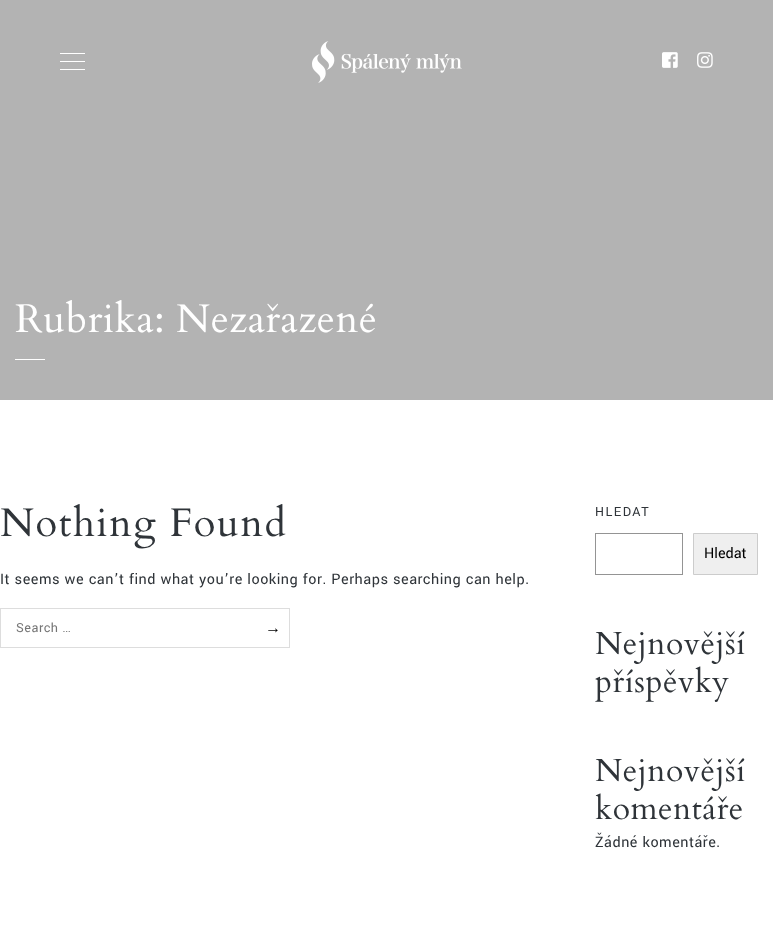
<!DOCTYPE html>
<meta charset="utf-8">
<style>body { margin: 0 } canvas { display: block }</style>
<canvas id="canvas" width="773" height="949"></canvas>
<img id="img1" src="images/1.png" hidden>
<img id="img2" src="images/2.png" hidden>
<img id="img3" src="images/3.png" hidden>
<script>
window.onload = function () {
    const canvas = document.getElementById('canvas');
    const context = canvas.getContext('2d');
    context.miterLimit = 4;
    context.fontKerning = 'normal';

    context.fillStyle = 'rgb(255, 255, 255)';
    context.fillRect(0, 0, 773, 949);
    context.fillStyle = 'rgb(179, 179, 179)';
    context.fillRect(0, 0, 773, 400);
    context.fillStyle = 'rgb(255, 255, 255)';
    context.fillRect(60, 53, 25, 1);
    context.fillRect(60, 61, 25, 1);
    context.fillRect(60, 69, 25, 1);
    context.drawImage(document.getElementById('img1'), 312, 41, 150, 42);
    context.drawImage(document.getElementById('img2'), 662, 52, 16, 16);
    context.drawImage(document.getElementById('img3'), 697, 52, 16, 16);
    context.fillRect(15, 359, 30, 1);
    context.strokeStyle = 'rgb(221, 221, 221)';
    context.strokeRect(0.5, 608.5, 289, 39);
    context.strokeStyle = 'rgb(148, 148, 148)';
    context.strokeRect(595.5, 533.5, 87, 41);
    context.fillStyle = 'rgb(239, 239, 239)';
    context.beginPath();
    context.rect(693.5, 533.5, 64, 41);
    context.fill();
    context.strokeStyle = 'rgb(204, 204, 204)';
    context.stroke();
    context.letterSpacing = '0.5px';
    context.font = '40px Cardo';
    context.fillStyle = 'rgb(255, 255, 255)';
    context.fillText('Rubrika: Nezařazené', 15, 332);
    context.letterSpacing = '1.5px';
    context.fillStyle = 'rgb(47, 52, 57)';
    context.fillText('Nothing Found', 0, 536);
    context.letterSpacing = '0.5px';
    context.font = '16px Yantramanav';
    context.fillText('It seems we can’t find what you’re looking for. Perhaps searching can help.', 0, 584);
    context.font = '14px Yantramanav';
    context.fillStyle = 'rgb(117, 117, 117)';
    context.fillText('Search …', 16, 632);
    context.letterSpacing = '0px';
    context.font = '16px Liberation Serif';
    context.fillStyle = 'rgb(0, 0, 0)';
    context.fillText('→', 265, 633);
    context.letterSpacing = '1.5px';
    context.font = '14px Yantramanav';
    context.fillStyle = 'rgb(47, 52, 57)';
    context.fillText('HLEDAT', 595, 516);
    context.letterSpacing = '0px';
    context.font = '16px Yantramanav';
    context.fillStyle = 'rgb(0, 0, 0)';
    context.fillText('Hledat', 704, 558);
    context.letterSpacing = '0.5px';
    context.font = '32px Cardo';
    context.fillStyle = 'rgb(47, 52, 57)';
    context.fillText('Nejnovější', 595, 654);
    context.fillText('příspěvky', 595, 692);
    context.fillText('Nejnovější', 595, 781);
    context.fillText('komentáře', 595, 819);
    context.font = '16px Yantramanav';
    context.fillText('Žádné komentáře.', 595, 847);
};
</script>
